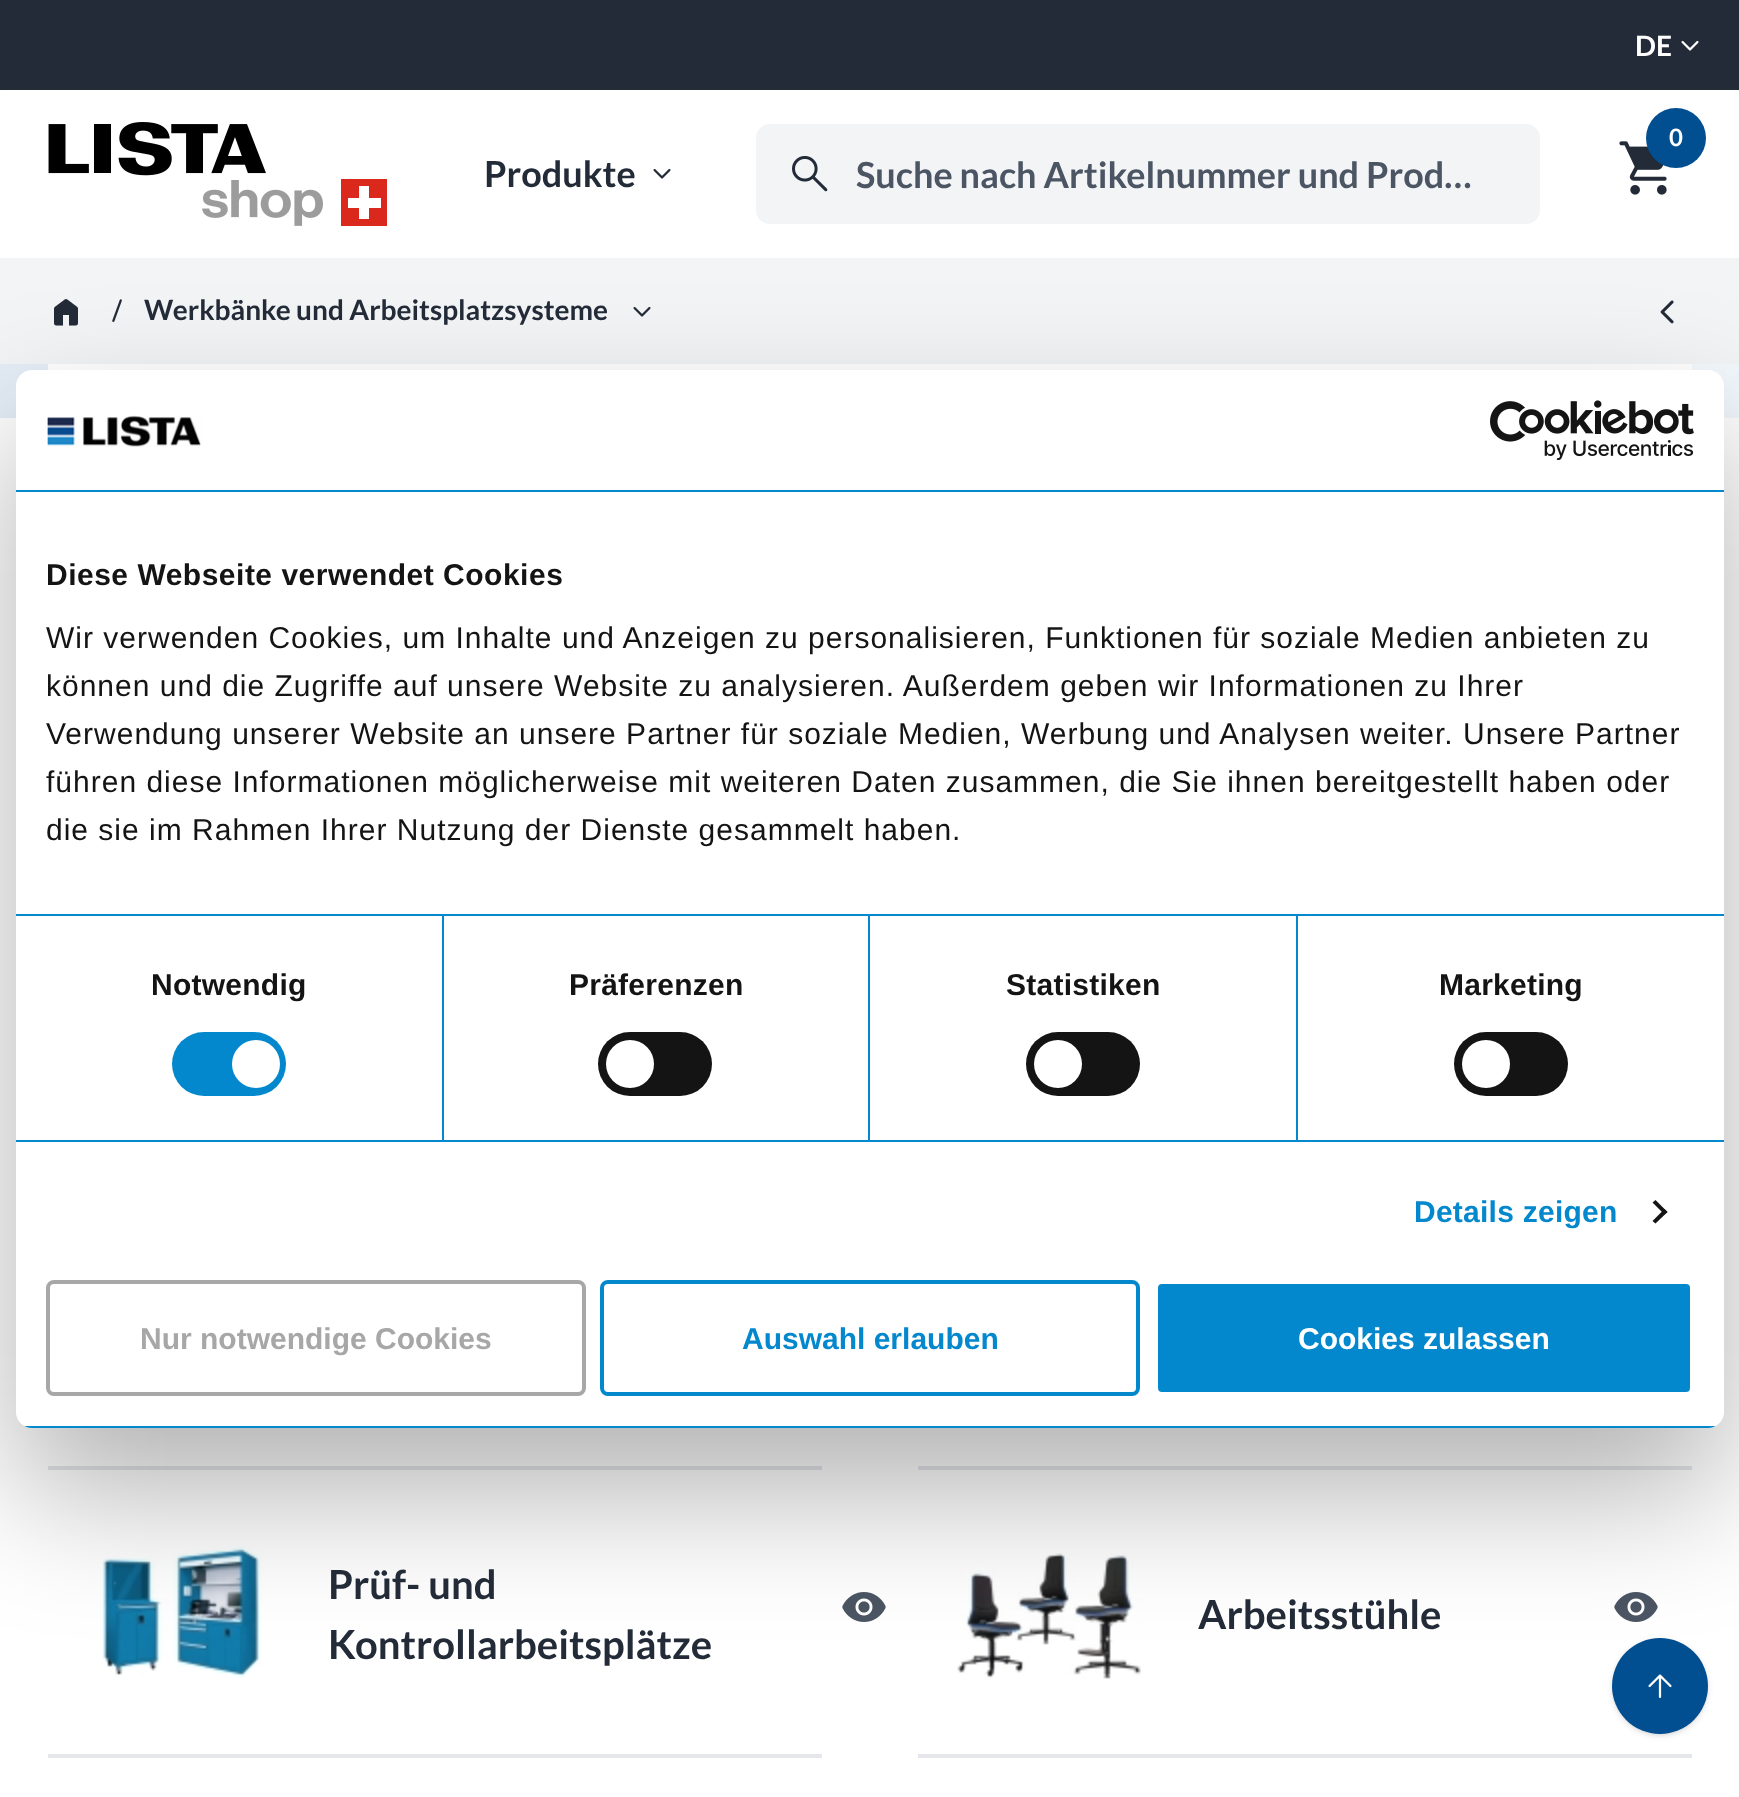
<!DOCTYPE html>
<meta charset="utf-8">
<style>body { margin: 0 } canvas { display: block }</style>
<canvas id="canvas" width="1739" height="1797"></canvas>
<img id="img1" src="images/1.png" hidden>
<img id="img2" src="images/2.png" hidden>
<img id="img3" src="images/3.png" hidden>
<img id="img4" src="images/4.png" hidden>
<img id="img5" src="images/5.png" hidden>
<img id="img6" src="images/6.png" hidden>
<img id="img7" src="images/7.png" hidden>
<img id="img8" src="images/8.png" hidden>
<img id="img9" src="images/9.png" hidden>
<img id="img10" src="images/10.png" hidden>
<img id="img11" src="images/11.png" hidden>
<img id="img12" src="images/12.png" hidden>
<img id="img13" src="images/13.png" hidden>
<img id="img14" src="images/14.png" hidden>
<img id="img15" src="images/15.png" hidden>
<img id="img16" src="images/16.png" hidden>
<script>
window.onload = function () {
    const canvas = document.getElementById('canvas');
    const context = canvas.getContext('2d');
    context.miterLimit = 4;
    context.fontKerning = 'normal';

    context.fillStyle = 'rgb(255, 255, 255)';
    context.fillRect(0, 0, 1739, 1797);
    context.fillStyle = 'rgb(34, 43, 55)';
    context.fillRect(0, 0, 1739, 90);
    context.drawImage(document.getElementById('img1'), 1681, 40, 18, 11);
    context.save();
    context.beginPath();
    context.rect(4, 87, 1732, 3);
    context.clip();
    context.fillStyle = 'rgba(99, 99, 99, 0.1)';
    context.filter = 'blur(8px)';
    context.beginPath();
    context.rect(0, 94, 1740, 168);
    context.fill();
    context.filter = 'none';
    context.restore();
    context.drawImage(document.getElementById('img2'), 48, 122, 339, 104);
    context.drawImage(document.getElementById('img3'), 1619, 141, 48, 54);
    context.fillStyle = 'rgb(1, 78, 145)';
    context.beginPath();
    context.arc(1676, 138, 30, 0, 2 * Math.PI);
    context.fill();
    context.drawImage(document.getElementById('img4'), 653, 168, 18, 11);
    context.fillStyle = 'rgb(243, 244, 246)';
    context.beginPath();
    context.roundRect(758, 126, 780, 96, 12);
    context.fill();
    context.strokeStyle = 'rgb(243, 244, 246)';
    context.lineWidth = 4;
    context.stroke();
    context.drawImage(document.getElementById('img5'), 792, 155, 36, 37);
    context.fillRect(0, 258, 1739, 106);
    context.drawImage(document.getElementById('img6'), 54, 299, 24, 27);
    context.drawImage(document.getElementById('img7'), 112, 299, 10, 23);
    context.drawImage(document.getElementById('img8'), 633, 306, 18, 11);
    context.drawImage(document.getElementById('img9'), 1660, 300, 14, 24);
    context.drawImage(document.getElementById('img10'), 0, 364, 1739, 54);
    context.fillStyle = 'rgb(255, 255, 255)';
    context.fillRect(48, 364, 1644, 6);
    context.fillStyle = 'rgb(229, 231, 235)';
    context.fillRect(48, 1466, 774, 4);
    context.fillRect(918, 1466, 774, 4);
    context.drawImage(document.getElementById('img11'), 102, 1546, 160, 132);
    context.drawImage(document.getElementById('img12'), 842, 1592, 44, 30);
    context.fillRect(48, 1754, 774, 4);
    context.drawImage(document.getElementById('img13'), 957, 1553, 184, 126);
    context.drawImage(document.getElementById('img12'), 1614, 1592, 44, 30);
    context.fillRect(918, 1754, 774, 4);
    context.fillStyle = 'rgba(0, 0, 0, 0.1)';
    context.filter = 'blur(2px)';
    context.beginPath();
    context.roundRect(1614, 1642, 92, 92, 46);
    context.fill();
    context.filter = 'none';
    context.filter = 'blur(3px)';
    context.beginPath();
    context.roundRect(1612, 1640, 96, 96, 48);
    context.fill();
    context.filter = 'none';
    context.fillStyle = 'rgb(1, 78, 145)';
    context.beginPath();
    context.arc(1660, 1686, 48, 0, 2 * Math.PI);
    context.fill();
    context.drawImage(document.getElementById('img14'), 1648, 1674, 24, 24);
    context.fillStyle = 'rgba(0, 0, 0, 0.3)';
    context.filter = 'blur(68px)';
    context.beginPath();
    context.roundRect(16, 434, 1708, 1058, 16);
    context.fill();
    context.filter = 'none';
    context.fillStyle = 'rgb(255, 255, 255)';
    context.beginPath();
    context.roundRect(16, 370, 1708, 1058, 16);
    context.fill();
    context.fillStyle = 'rgb(4, 136, 205)';
    context.fillRect(16, 490, 1708, 2);
    context.drawImage(document.getElementById('img15'), 47, 415, 155, 32);
    context.drawImage(document.getElementById('img16'), 1490, 400, 204, 60);
    context.fillRect(16, 914, 1708, 2);
    context.fillRect(16, 1140, 1708, 2);
    context.fillRect(442, 916, 2, 224);
    context.beginPath();
    context.roundRect(172, 1032, 114, 64, 32);
    context.fill();
    context.fillStyle = 'rgb(255, 255, 255)';
    context.beginPath();
    context.arc(256, 1064, 24, 0, 2 * Math.PI);
    context.fill();
    context.fillStyle = 'rgb(4, 136, 205)';
    context.fillRect(868, 916, 2, 224);
    context.fillStyle = 'rgb(20, 20, 20)';
    context.beginPath();
    context.roundRect(598, 1032, 114, 64, 32);
    context.fill();
    context.fillStyle = 'rgb(255, 255, 255)';
    context.beginPath();
    context.arc(630, 1064, 24, 0, 2 * Math.PI);
    context.fill();
    context.fillStyle = 'rgb(4, 136, 205)';
    context.fillRect(1296, 916, 2, 224);
    context.fillStyle = 'rgb(20, 20, 20)';
    context.beginPath();
    context.roundRect(1026, 1032, 114, 64, 32);
    context.fill();
    context.fillStyle = 'rgb(255, 255, 255)';
    context.beginPath();
    context.arc(1058, 1064, 24, 0, 2 * Math.PI);
    context.fill();
    context.fillStyle = 'rgb(20, 20, 20)';
    context.beginPath();
    context.roundRect(1454, 1032, 114, 64, 32);
    context.fill();
    context.fillStyle = 'rgb(255, 255, 255)';
    context.beginPath();
    context.arc(1486, 1064, 24, 0, 2 * Math.PI);
    context.fill();
    context.fillStyle = 'rgb(20, 20, 20)';
    context.beginPath();
    context.moveTo(1655.5, 1200);
    context.lineTo(1667.5, 1212);
    context.lineTo(1664.5, 1214.5);
    context.lineTo(1652.5, 1202.5);
    context.closePath();
    context.fill();
    context.beginPath();
    context.moveTo(1664.5, 1209);
    context.lineTo(1667.5, 1212);
    context.lineTo(1655.5, 1223.5);
    context.lineTo(1652.5, 1221);
    context.closePath();
    context.fill();
    context.save();
    context.beginPath();
    context.roundRect(16, 370, 1708, 1058, 16);
    context.clip();
    context.fillStyle = 'rgb(4, 136, 205)';
    context.fillRect(16, 1426, 1708, 2);
    context.restore();
    context.beginPath();
    context.roundRect(48, 1282, 536, 112, 6);
    context.strokeStyle = 'rgb(167, 167, 167)';
    context.stroke();
    context.beginPath();
    context.roundRect(602, 1282, 536, 112, 6);
    context.strokeStyle = 'rgb(4, 136, 205)';
    context.stroke();
    context.fillStyle = 'rgb(4, 136, 205)';
    context.beginPath();
    context.roundRect(1156, 1282, 536, 112, 6);
    context.fill();
    context.strokeStyle = 'rgb(255, 255, 255)';
    context.stroke();
    context.font = 'bold 28px Lato';
    context.fillStyle = 'rgb(255, 255, 255)';
    context.fillText('DE', 1635, 56);
    context.font = 'bold 24px Lato';
    context.fillText('0', 1669, 146);
    context.font = 'bold 36px Lato';
    context.fillStyle = 'rgb(34, 43, 55)';
    context.fillText('Produkte', 484, 187);
    context.fillStyle = 'rgb(75, 85, 99)';
    context.fillText('Suche nach Artikelnummer und Prod…', 856, 188);
    context.font = 'bold 28px Lato';
    context.fillStyle = 'rgb(34, 43, 55)';
    context.fillText('Werkbänke und Arbeitsplatzsysteme', 144, 320);
    context.font = 'bold 40px Lato';
    context.fillText('Prüf- und', 328, 1599);
    context.fillText('Kontrollarbeitsplätze', 328, 1659);
    context.fillText('Arbeitsstühle', 1198, 1629);
    context.letterSpacing = '0.5px';
    context.font = 'bold 30px Liberation Sans';
    context.fillStyle = 'rgb(20, 20, 20)';
    context.fillText('Diese Webseite verwendet Cookies', 46, 585);
    context.letterSpacing = '1px';
    context.font = '30px Liberation Sans';
    context.fillText('Wir verwenden Cookies, um Inhalte und Anzeigen zu personalisieren, Funktionen für soziale Medien anbieten zu', 46, 648);
    context.fillText('können und die Zugriffe auf unsere Website zu analysieren. Außerdem geben wir Informationen zu Ihrer', 46, 696);
    context.fillText('Verwendung unserer Website an unsere Partner für soziale Medien, Werbung und Analysen weiter. Unsere Partner', 46, 744);
    context.fillText('führen diese Informationen möglicherweise mit weiteren Daten zusammen, die Sie ihnen bereitgestellt haben oder', 46, 792);
    context.fillText('die sie im Rahmen Ihrer Nutzung der Dienste gesammelt haben.', 46, 840);
    context.letterSpacing = '0.25px';
    context.font = 'bold 30px Liberation Sans';
    context.fillText('Notwendig', 151, 995);
    context.fillText('Präferenzen', 569, 995);
    context.fillText('Statistiken', 1006, 995);
    context.fillText('Marketing', 1439, 995);
    context.fillStyle = 'rgb(4, 136, 205)';
    context.fillText('Details zeigen', 1414, 1222);
    context.letterSpacing = '0px';
    context.fillStyle = 'rgb(167, 167, 167)';
    context.fillText('Nur notwendige Cookies', 140, 1349);
    context.fillStyle = 'rgb(4, 136, 205)';
    context.fillText('Auswahl erlauben', 742, 1349);
    context.fillStyle = 'rgb(255, 255, 255)';
    context.fillText('Cookies zulassen', 1298, 1349);
};
</script>
